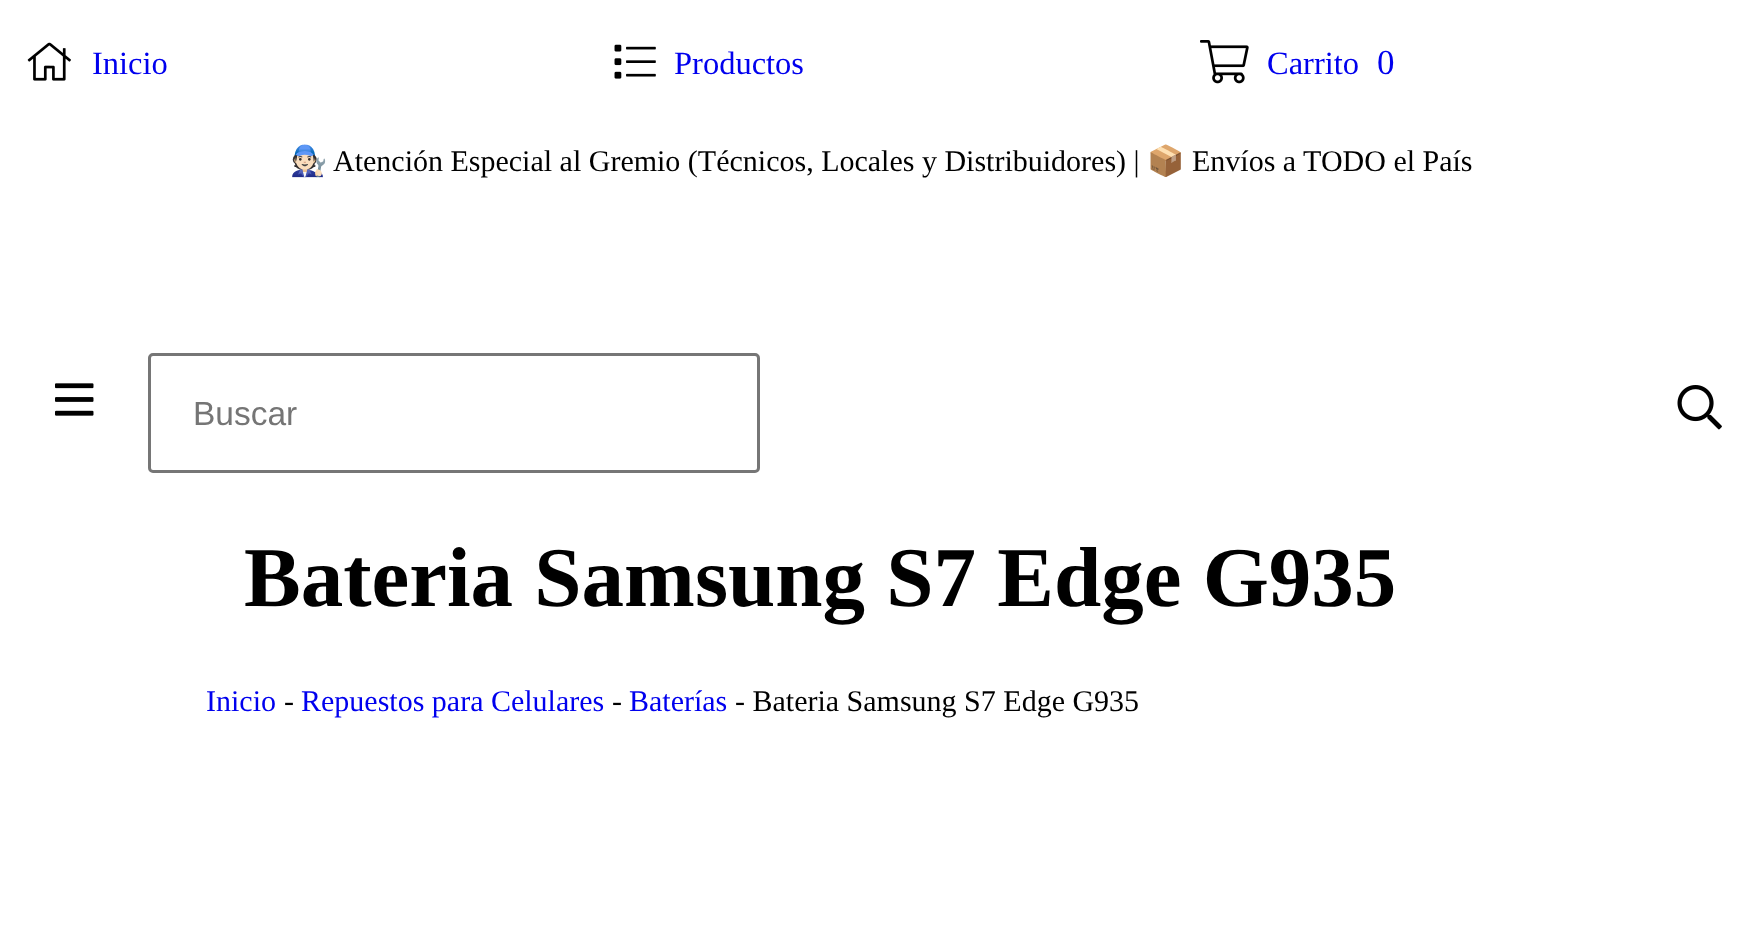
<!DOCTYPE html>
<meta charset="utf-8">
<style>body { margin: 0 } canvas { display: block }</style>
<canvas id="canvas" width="1761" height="942"></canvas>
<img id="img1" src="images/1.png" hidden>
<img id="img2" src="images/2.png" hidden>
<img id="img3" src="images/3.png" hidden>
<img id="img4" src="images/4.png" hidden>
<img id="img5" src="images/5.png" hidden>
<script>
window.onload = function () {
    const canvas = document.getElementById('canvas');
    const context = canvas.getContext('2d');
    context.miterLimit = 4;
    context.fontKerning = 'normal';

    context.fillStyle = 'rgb(255, 255, 255)';
    context.fillRect(0, 0, 1761, 942);
    context.drawImage(document.getElementById('img1'), 27, 42, 44, 39);
    context.drawImage(document.getElementById('img2'), 614, 44, 42, 35);
    context.drawImage(document.getElementById('img3'), 1200, 40, 49, 44);
    context.drawImage(document.getElementById('img4'), 55, 383, 39, 33);
    context.beginPath();
    context.roundRect(149.5, 354.5, 609, 117, 3.5);
    context.strokeStyle = 'rgb(118, 118, 118)';
    context.lineWidth = 3;
    context.stroke();
    context.drawImage(document.getElementById('img5'), 1677, 385, 45, 45);
    context.font = '32.5px Liberation Serif';
    context.fillStyle = 'rgb(0, 0, 238)';
    context.fillText('Inicio', 92, 74);
    context.fillText('Productos', 674, 74);
    context.fillText('Carrito', 1267, 74);
    context.font = '35px Liberation Serif';
    context.fillText('0', 1377, 74);
    context.font = '30px Noto Color Emoji';
    context.fillStyle = 'rgb(0, 0, 0)';
    context.fillText('🧑🏻‍🔧', 290, 171);
    context.font = '30px Liberation Serif';
    context.fillText('Atención Especial al Gremio (Técnicos, Locales y Distribuidores) |', 333, 171);
    context.font = '30px Noto Color Emoji';
    context.fillText('📦', 1147, 171);
    context.font = '30px Liberation Serif';
    context.fillText('Envíos a TODO el País', 1192, 171);
    context.font = '33.5px Liberation Sans';
    context.fillStyle = 'rgb(117, 117, 117)';
    context.fillText('Buscar', 193, 425);
    context.font = 'bold 85px Liberation Serif';
    context.fillStyle = 'rgb(0, 0, 0)';
    context.fillText('Bateria Samsung S7 Edge G935', 244, 606);
    context.font = '30px Liberation Serif';
    context.fillStyle = 'rgb(0, 0, 238)';
    context.fillText('Inicio', 206, 711);
    context.fillStyle = 'rgb(0, 0, 0)';
    context.fillText('-', 284, 711);
    context.fillStyle = 'rgb(0, 0, 238)';
    context.fillText('Repuestos para Celulares', 301, 711);
    context.fillStyle = 'rgb(0, 0, 0)';
    context.fillText('-', 612, 711);
    context.fillStyle = 'rgb(0, 0, 238)';
    context.fillText('Baterías', 629, 711);
    context.fillStyle = 'rgb(0, 0, 0)';
    context.fillText('- Bateria Samsung S7 Edge G935', 735, 711);
};
</script>
